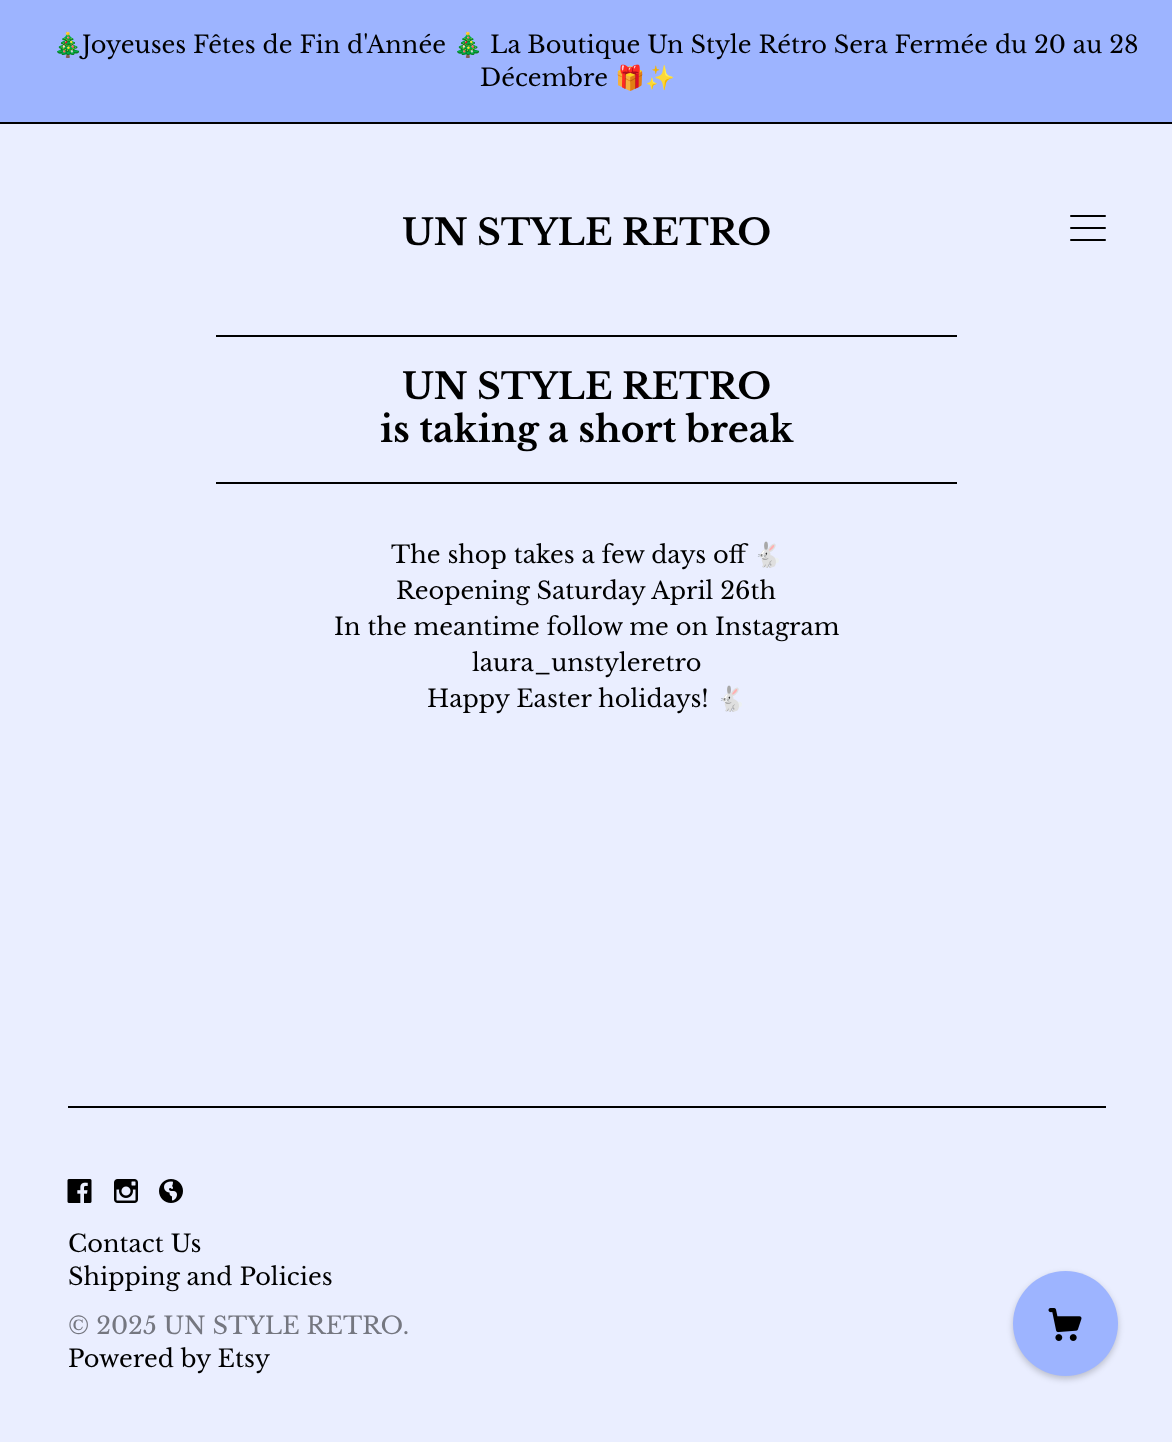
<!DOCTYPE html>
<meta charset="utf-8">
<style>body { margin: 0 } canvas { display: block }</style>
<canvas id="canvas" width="1172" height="1442"></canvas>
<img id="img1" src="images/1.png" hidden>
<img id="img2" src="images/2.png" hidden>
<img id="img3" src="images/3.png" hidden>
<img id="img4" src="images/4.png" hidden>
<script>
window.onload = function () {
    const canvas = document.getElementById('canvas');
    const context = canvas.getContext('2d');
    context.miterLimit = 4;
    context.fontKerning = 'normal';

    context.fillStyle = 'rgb(234, 238, 255)';
    context.fillRect(0, 0, 1172, 1442);
    context.fillStyle = 'rgb(157, 180, 255)';
    context.fillRect(0, 0, 1172, 122);
    context.fillStyle = 'rgb(0, 0, 0)';
    context.fillRect(0, 122, 1172, 2);
    context.beginPath();
    context.roundRect(1070, 215, 36, 2, 1);
    context.fill();
    context.beginPath();
    context.roundRect(1070, 227, 36, 2, 1);
    context.fill();
    context.beginPath();
    context.roundRect(1070, 239, 36, 2, 1);
    context.fill();
    context.fillRect(216, 335, 741, 2);
    context.fillRect(216, 482, 741, 2);
    context.fillRect(68, 1106, 1038, 2);
    context.drawImage(document.getElementById('img1'), 67, 1179, 25, 24);
    context.drawImage(document.getElementById('img2'), 114, 1179, 24, 24);
    context.drawImage(document.getElementById('img3'), 159, 1179, 24, 24);
    context.fillStyle = 'rgba(0, 0, 0, 0.2)';
    context.filter = 'blur(3px)';
    context.beginPath();
    context.roundRect(1013, 1274, 105, 105, 52.5);
    context.fill();
    context.filter = 'none';
    context.fillStyle = 'rgb(157, 180, 255)';
    context.beginPath();
    context.arc(1065.5, 1323.5, 52.5, 0, 2 * Math.PI);
    context.fill();
    context.drawImage(document.getElementById('img4'), 1048, 1308, 34, 33);
    context.font = '24px Noto Color Emoji';
    context.fillStyle = 'rgb(0, 0, 0)';
    context.fillText('🎄', 53, 53);
    context.font = '24px Libre Baskerville';
    context.fillText('Joyeuses Fêtes de Fin d\'Année', 82, 53);
    context.font = '24px Noto Color Emoji';
    context.fillText('🎄', 453, 53);
    context.font = '24px Libre Baskerville';
    context.fillText('La Boutique Un Style Rétro Sera Fermée du 20 au 28', 490, 53);
    context.fillText('Décembre', 480, 86);
    context.font = '24px Noto Color Emoji';
    context.fillText('🎁✨', 615, 86);
    context.font = 'bold 36px Libre Baskerville';
    context.fillText('UN STYLE RETRO', 402, 245);
    context.fillText('UN STYLE RETRO', 402, 399);
    context.fillText('is taking a short break', 380, 442);
    context.font = '24px Libre Baskerville';
    context.fillText('The shop takes a few days off', 391, 563);
    context.font = '24px Noto Color Emoji';
    context.fillText('🐇', 753, 563);
    context.font = '24px Libre Baskerville';
    context.fillText('Reopening Saturday April 26th', 396, 599);
    context.fillText('In the meantime follow me on Instagram', 334, 635);
    context.fillText('laura_unstyleretro', 472, 671);
    context.fillText('Happy Easter holidays!', 427, 707);
    context.font = '24px Noto Color Emoji';
    context.fillText('🐇', 716, 707);
    context.font = '24px Libre Baskerville';
    context.fillText('Contact Us', 68, 1252);
    context.fillText('Shipping and Policies', 68, 1285);
    context.fillStyle = 'rgb(117, 119, 128)';
    context.fillText('© 2025 UN STYLE RETRO.', 68, 1334);
    context.fillStyle = 'rgb(0, 0, 0)';
    context.fillText('Powered by Etsy', 68, 1367);
};
</script>
